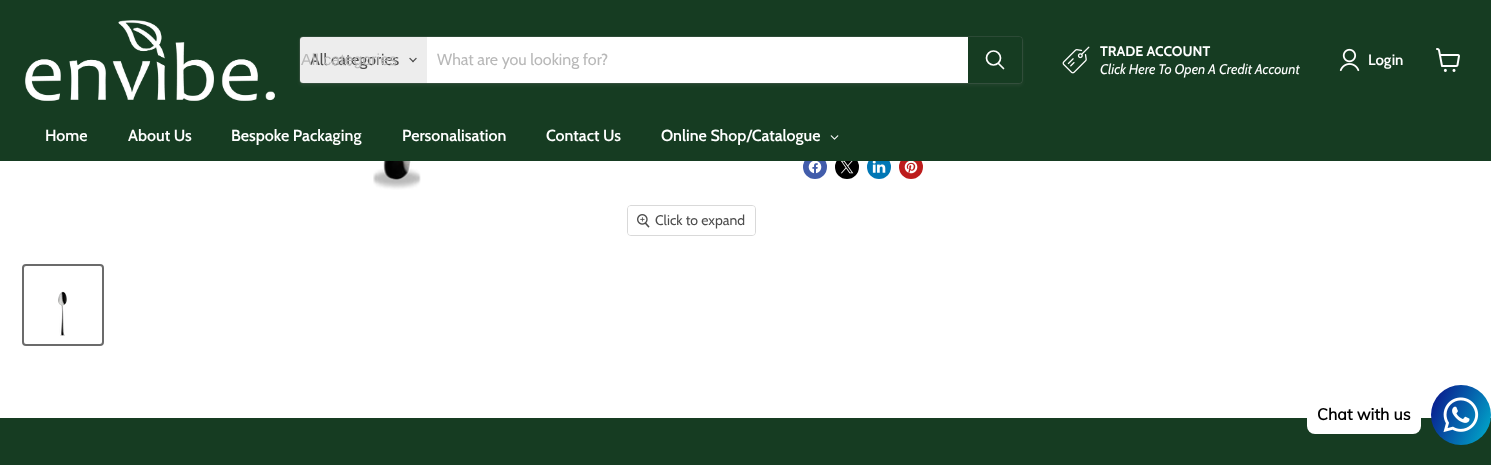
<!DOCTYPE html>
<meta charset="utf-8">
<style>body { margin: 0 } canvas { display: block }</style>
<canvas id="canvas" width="1491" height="465"></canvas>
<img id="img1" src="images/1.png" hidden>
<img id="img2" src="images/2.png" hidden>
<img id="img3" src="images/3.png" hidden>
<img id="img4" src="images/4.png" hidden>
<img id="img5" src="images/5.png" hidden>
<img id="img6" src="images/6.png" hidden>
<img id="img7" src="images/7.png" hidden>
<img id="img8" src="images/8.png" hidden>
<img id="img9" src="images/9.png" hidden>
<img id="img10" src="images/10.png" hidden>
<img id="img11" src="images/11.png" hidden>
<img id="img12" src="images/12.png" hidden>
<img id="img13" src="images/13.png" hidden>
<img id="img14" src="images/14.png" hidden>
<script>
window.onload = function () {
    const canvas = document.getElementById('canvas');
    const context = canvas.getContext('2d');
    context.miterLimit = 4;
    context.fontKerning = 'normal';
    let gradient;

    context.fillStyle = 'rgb(255, 255, 255)';
    context.fillRect(0, 0, 1491, 465);
    context.fillStyle = 'rgb(66, 93, 171)';
    context.beginPath();
    context.arc(815, 167, 12, 0, 2 * Math.PI);
    context.fill();
    context.fillStyle = 'rgb(0, 0, 0)';
    context.beginPath();
    context.arc(847, 167, 12, 0, 2 * Math.PI);
    context.fill();
    context.fillStyle = 'rgb(0, 119, 181)';
    context.beginPath();
    context.arc(879, 167, 12, 0, 2 * Math.PI);
    context.fill();
    context.fillStyle = 'rgb(189, 28, 28)';
    context.beginPath();
    context.arc(911, 167, 12, 0, 2 * Math.PI);
    context.fill();
    context.fillStyle = 'rgb(22, 60, 34)';
    context.fillRect(0, 0, 1491, 161);
    context.drawImage(document.getElementById('img1'), 25, 20, 250, 81);
    context.fillStyle = 'rgba(128, 128, 128, 0.11)';
    context.filter = 'blur(1.5px)';
    context.beginPath();
    context.roundRect(299, 38, 724, 48, 4);
    context.fill();
    context.filter = 'none';
    context.beginPath();
    context.roundRect(299.5, 36.5, 723, 47, 3.5);
    context.strokeStyle = 'rgba(128, 128, 128, 0.2)';
    context.stroke();
    context.fillStyle = 'rgb(237, 237, 237)';
    context.beginPath();
    context.roundRect(300, 37, 127, 46, [3, 0, 0, 3]);
    context.fill();
    context.drawImage(document.getElementById('img2'), 409, 57, 8, 6);
    context.fillStyle = 'rgb(255, 255, 255)';
    context.fillRect(427, 37, 541, 46);
    context.fillStyle = 'rgb(22, 60, 34)';
    context.beginPath();
    context.roundRect(968.5, 37.5, 53, 45, [0, 2.5, 2.5, 0]);
    context.fill();
    context.strokeStyle = 'rgb(22, 60, 34)';
    context.stroke();
    context.beginPath();
    context.moveTo(1003.5, 68.5);
    context.lineTo(998.5, 63.5);
    context.strokeStyle = 'rgb(255, 255, 255)';
    context.lineWidth = 1.7;
    context.lineCap = 'round';
    context.stroke();
    context.beginPath();
    context.arc(993.5, 58, 7, 0, 2 * Math.PI);
    context.stroke();
    context.drawImage(document.getElementById('img3'), 1062, 46, 28, 28);
    context.drawImage(document.getElementById('img4'), 1339, 48, 21, 24);
    context.drawImage(document.getElementById('img5'), 1436, 48, 24, 24);
    context.drawImage(document.getElementById('img6'), 830, 135, 9, 5);
    context.drawImage(document.getElementById('img7'), 808, 161, 14, 13);
    context.drawImage(document.getElementById('img8'), 840, 161, 14, 13);
    context.drawImage(document.getElementById('img9'), 872, 161, 14, 12);
    context.drawImage(document.getElementById('img10'), 904, 161, 14, 13);
    context.drawImage(document.getElementById('img11'), 373, 161, 48, 29);
    context.beginPath();
    context.roundRect(627.5, 205.5, 128, 30, 3.5);
    context.strokeStyle = 'rgb(217, 217, 217)';
    context.lineWidth = 1;
    context.stroke();
    context.fillStyle = 'rgba(255, 255, 255, 0.9)';
    context.beginPath();
    context.roundRect(628, 206, 127, 29, 3);
    context.fill();
    context.drawImage(document.getElementById('img12'), 637, 214, 13, 14);
    context.beginPath();
    context.roundRect(23, 265, 80, 80, 3);
    context.strokeStyle = 'rgb(107, 107, 107)';
    context.lineWidth = 2;
    context.stroke();
    context.drawImage(document.getElementById('img13'), 58, 291, 9, 45);
    context.fillStyle = 'rgb(22, 60, 34)';
    context.fillRect(0, 418, 1491, 47);
    gradient = context.createLinearGradient(1425, 398, 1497, 432);
    gradient.addColorStop(0, 'rgb(10, 14, 136)');
    gradient.addColorStop(1, 'rgb(0, 177, 206)');
    context.fillStyle = gradient;
    context.beginPath();
    context.arc(1461, 415, 30, 0, 2 * Math.PI);
    context.fill();
    context.fillStyle = 'rgb(255, 255, 255)';
    context.beginPath();
    context.roundRect(1307, 395, 114, 39, 8);
    context.fill();
    context.drawImage(document.getElementById('img14'), 1443, 397, 36, 36);
    context.font = '16px Cabin';
    context.fillStyle = 'rgb(77, 77, 77)';
    context.fillText('All categories', 310, 65);
    context.font = '16px Liberation Sans';
    context.fillStyle = 'rgb(184, 184, 184)';
    context.fillText('All categories', 301, 65);
    context.font = '16px Cabin';
    context.fillText('What are you looking for?', 437, 65);
    context.font = 'bold 14px Cabin';
    context.fillStyle = 'rgb(255, 255, 255)';
    context.fillText('TRADE ACCOUNT', 1100, 56);
    context.font = 'italic 14px Cabin';
    context.fillText('Click Here To Open A Credit Account', 1100, 74);
    context.font = '600 15px Cabin';
    context.fillText('Login', 1368, 65);
    context.font = '600 16px Cabin';
    context.fillText('Home', 45, 141);
    context.fillText('About Us', 128, 141);
    context.fillText('Bespoke Packaging', 231, 141);
    context.fillText('Personalisation', 402, 141);
    context.fillText('Contact Us', 546, 141);
    context.fillText('Online Shop/Catalogue', 661, 141);
    context.font = '14px Cabin';
    context.fillStyle = 'rgb(77, 77, 77)';
    context.fillText('Click to expand', 655, 225);
    context.font = 'bold 16px Muli';
    context.fillStyle = 'rgb(0, 0, 0)';
    context.fillText('Chat with us', 1317, 420);
};
</script>
